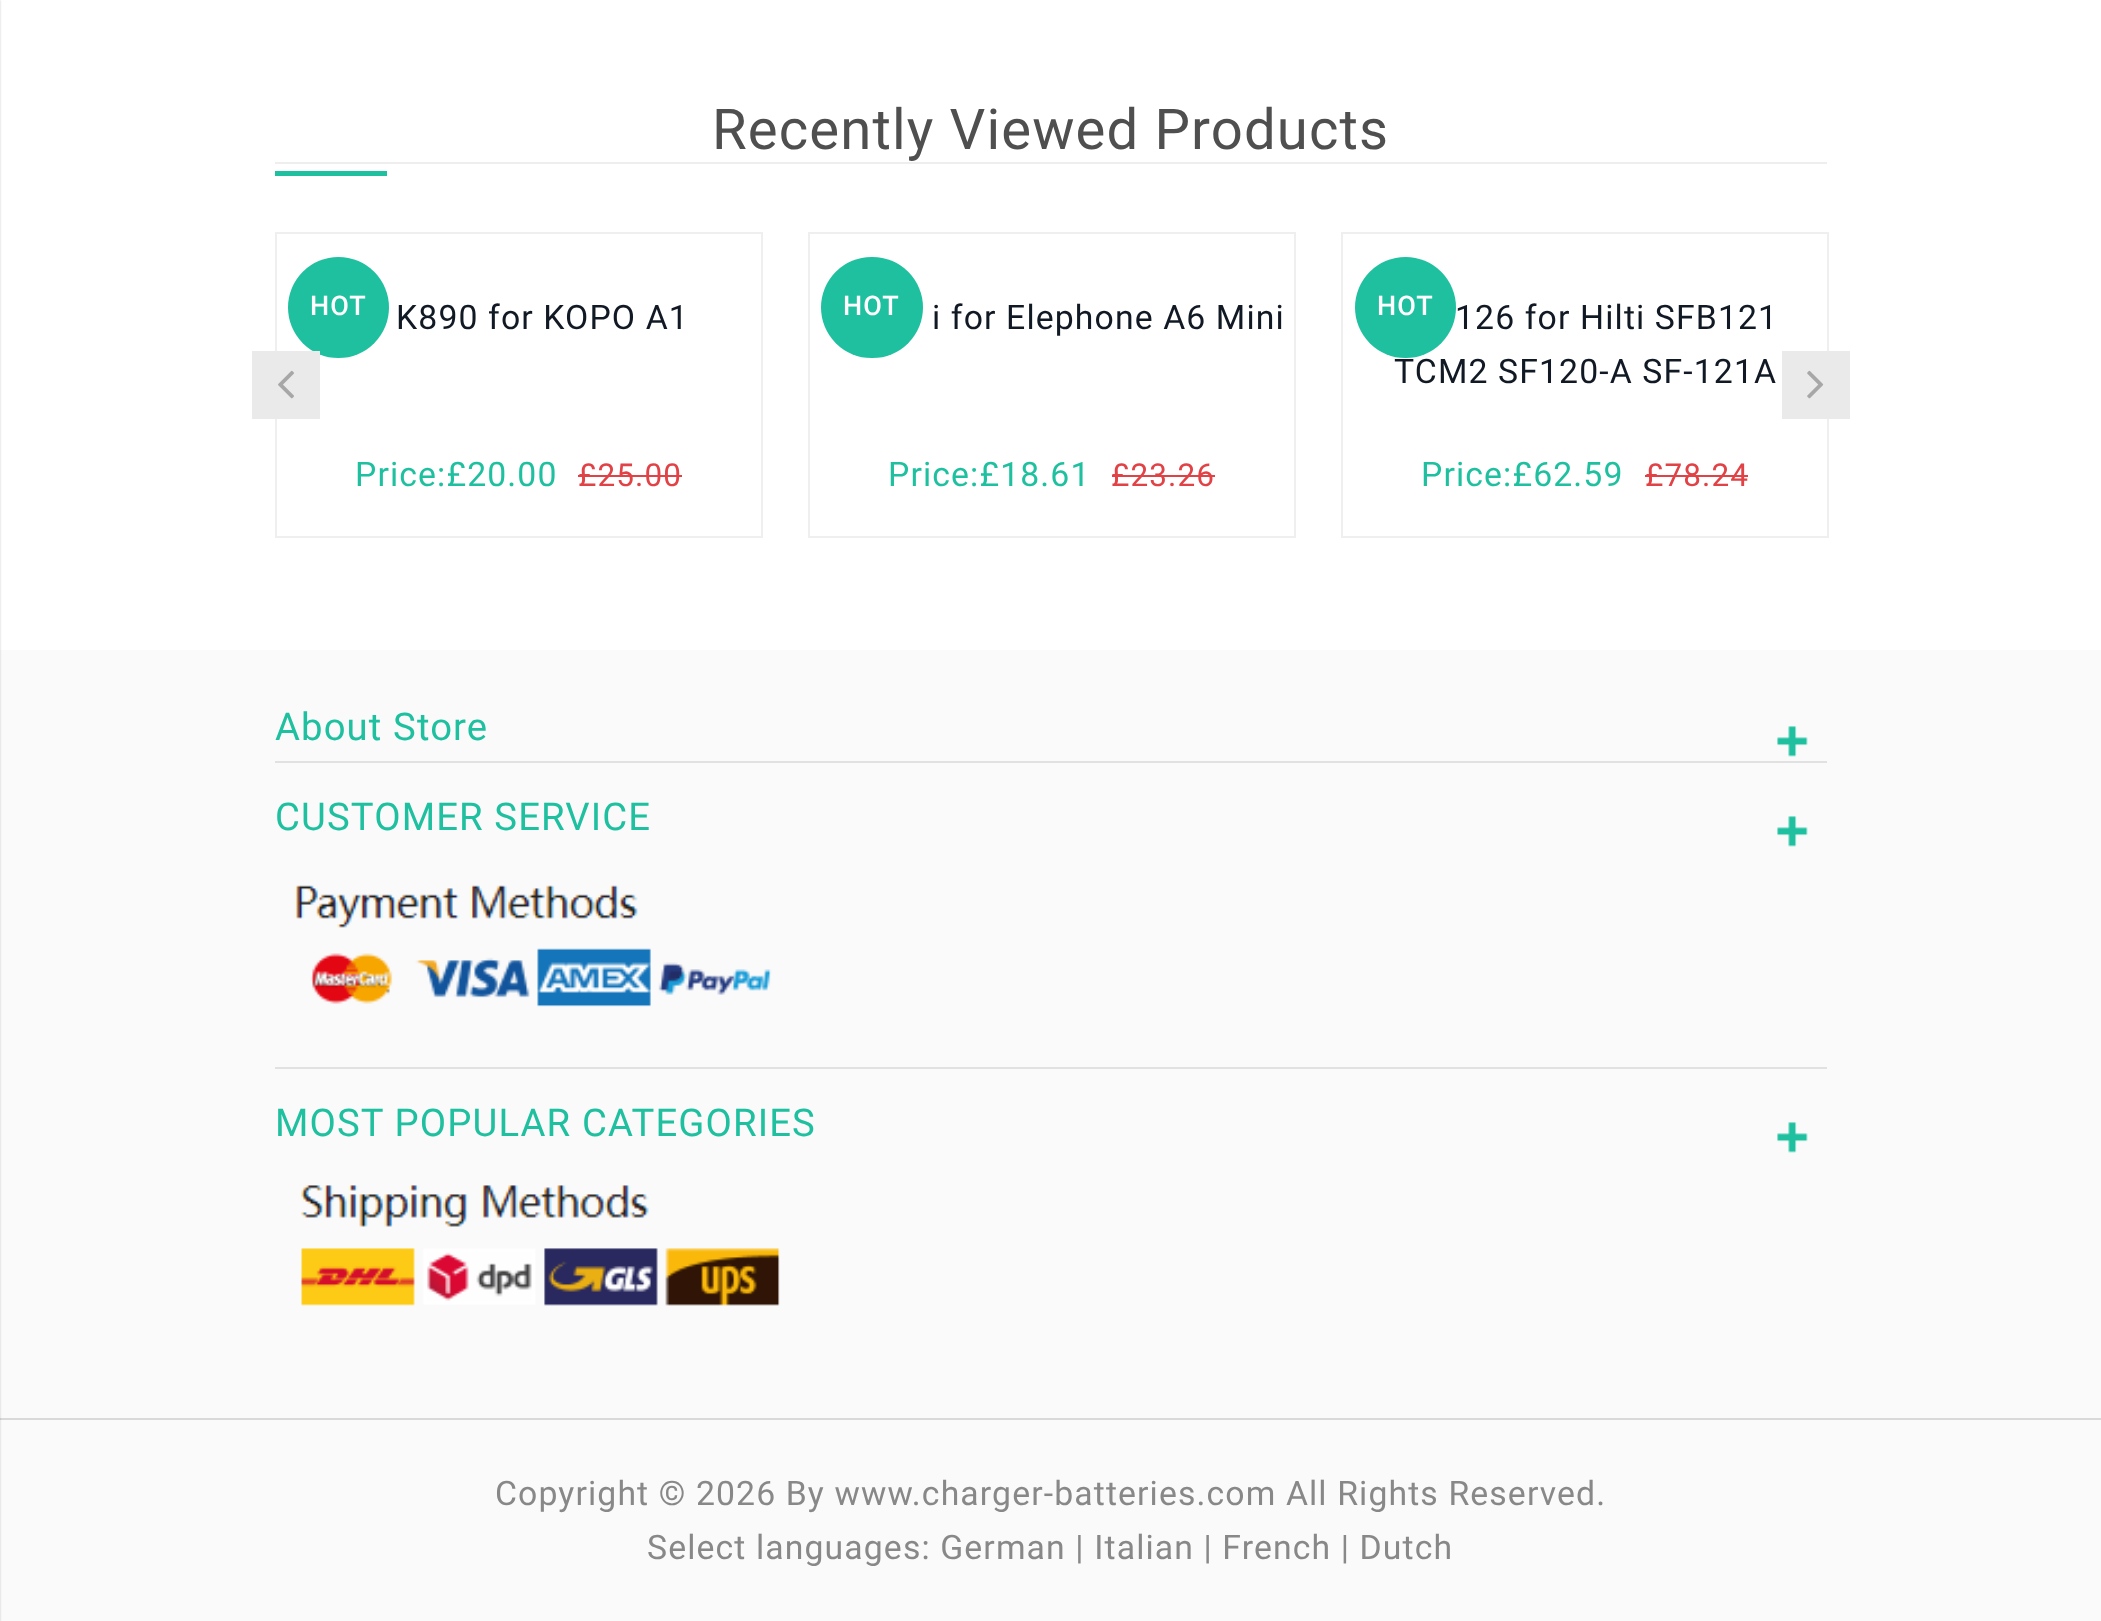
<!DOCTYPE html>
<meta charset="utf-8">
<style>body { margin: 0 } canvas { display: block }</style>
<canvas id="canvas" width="2101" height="1621"></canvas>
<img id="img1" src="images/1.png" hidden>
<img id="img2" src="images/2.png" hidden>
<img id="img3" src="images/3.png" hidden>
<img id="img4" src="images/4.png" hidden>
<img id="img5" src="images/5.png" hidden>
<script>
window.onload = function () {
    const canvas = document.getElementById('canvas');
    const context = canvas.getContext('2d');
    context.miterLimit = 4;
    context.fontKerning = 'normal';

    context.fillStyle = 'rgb(255, 255, 255)';
    context.fillRect(0, 0, 2101, 1621);
    context.fillStyle = 'rgb(250, 250, 250)';
    context.fillRect(0, 650, 2101, 971);
    context.fillStyle = 'rgb(217, 217, 217)';
    context.fillRect(0, 1418, 2101, 2);
    context.fillStyle = 'rgba(0, 0, 0, 0.2)';
    context.filter = 'blur(1px)';
    context.beginPath();
    context.rect(-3, 0, 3, 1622);
    context.fill();
    context.filter = 'none';
    context.fillStyle = 'rgb(31, 192, 159)';
    context.fillRect(275, 171, 112, 5);
    context.fillStyle = 'rgb(238, 238, 238)';
    context.fillRect(275, 162, 1552, 2);
    context.strokeStyle = 'rgb(239, 239, 239)';
    context.lineWidth = 2;
    context.strokeRect(276, 233, 486, 304);
    context.fillStyle = 'rgb(31, 192, 159)';
    context.beginPath();
    context.arc(338.5, 307.5, 50.5, 0, 2 * Math.PI);
    context.fill();
    context.fillStyle = 'rgb(225, 66, 70)';
    context.fillRect(578, 475, 104, 2);
    context.strokeRect(809, 233, 486, 304);
    context.fillStyle = 'rgb(31, 192, 159)';
    context.beginPath();
    context.roundRect(821, 257, 102, 101, 50.5);
    context.fill();
    context.fillStyle = 'rgb(225, 66, 70)';
    context.fillRect(1112, 475, 103, 2);
    context.strokeRect(1342, 233, 486, 304);
    context.fillStyle = 'rgb(31, 192, 159)';
    context.beginPath();
    context.arc(1405.5, 307.5, 50.5, 0, 2 * Math.PI);
    context.fill();
    context.fillStyle = 'rgb(225, 66, 70)';
    context.fillRect(1645, 475, 103, 2);
    context.fillStyle = 'rgb(234, 234, 234)';
    context.fillRect(252, 351, 68, 68);
    context.drawImage(document.getElementById('img1'), 278, 370, 16, 29);
    context.fillRect(1782, 351, 68, 68);
    context.drawImage(document.getElementById('img2'), 1807, 370, 17, 29);
    context.fillStyle = 'rgb(225, 225, 225)';
    context.fillRect(275, 761, 1552, 2);
    context.drawImage(document.getElementById('img3'), 1777, 726, 31, 31);
    context.fillRect(275, 1067, 1552, 2);
    context.drawImage(document.getElementById('img3'), 1777, 816, 31, 31);
    context.drawImage(document.getElementById('img4'), 294, 885, 478, 122);
    context.drawImage(document.getElementById('img3'), 1777, 1122, 31, 31);
    context.drawImage(document.getElementById('img5'), 301, 1185, 479, 121);
    context.letterSpacing = '1.12px';
    context.font = '56.25px Roboto';
    context.fillStyle = 'rgb(80, 79, 79)';
    context.fillText('Recently Viewed Products', 712, 149);
    context.font = '500 27px Roboto';
    context.fillStyle = 'rgb(255, 255, 255)';
    context.fillText('HOT', 310, 315);
    context.font = '33.75px Roboto';
    context.fillStyle = 'rgb(17, 25, 36)';
    context.fillText('K890 for KOPO A1', 396, 329);
    context.fillStyle = 'rgb(31, 192, 159)';
    context.fillText('Price:£20.00', 355, 486);
    context.font = '31.5px Roboto';
    context.fillStyle = 'rgb(225, 66, 70)';
    context.fillText('£25.00', 578, 486);
    context.font = '500 27px Roboto';
    context.fillStyle = 'rgb(255, 255, 255)';
    context.fillText('HOT', 843, 315);
    context.font = '33.75px Roboto';
    context.fillStyle = 'rgb(17, 25, 36)';
    context.fillText('i for Elephone A6 Mini', 932, 329);
    context.fillStyle = 'rgb(31, 192, 159)';
    context.fillText('Price:£18.61', 888, 486);
    context.font = '31.5px Roboto';
    context.fillStyle = 'rgb(225, 66, 70)';
    context.fillText('£23.26', 1111, 486);
    context.font = '500 27px Roboto';
    context.fillStyle = 'rgb(255, 255, 255)';
    context.fillText('HOT', 1377, 315);
    context.font = '33.75px Roboto';
    context.fillStyle = 'rgb(17, 25, 36)';
    context.fillText('126 for Hilti SFB121', 1455, 329);
    context.fillText('TCM2 SF120-A SF-121A', 1394, 383);
    context.fillStyle = 'rgb(31, 192, 159)';
    context.fillText('Price:£62.59', 1421, 486);
    context.font = '31.5px Roboto';
    context.fillStyle = 'rgb(225, 66, 70)';
    context.fillText('£78.24', 1645, 486);
    context.font = '38.25px Roboto';
    context.fillStyle = 'rgb(31, 192, 159)';
    context.fillText('About Store', 275, 740);
    context.fillText('CUSTOMER SERVICE', 275, 830);
    context.fillText('MOST POPULAR CATEGORIES', 275, 1136);
    context.font = '33.75px Roboto';
    context.fillStyle = 'rgb(136, 136, 136)';
    context.fillText('Copyright © 2026 By www.charger-batteries.com All Rights Reserved.', 495, 1505);
    context.fillText('Select languages: German | Italian | French | Dutch', 647, 1559);
};
</script>
